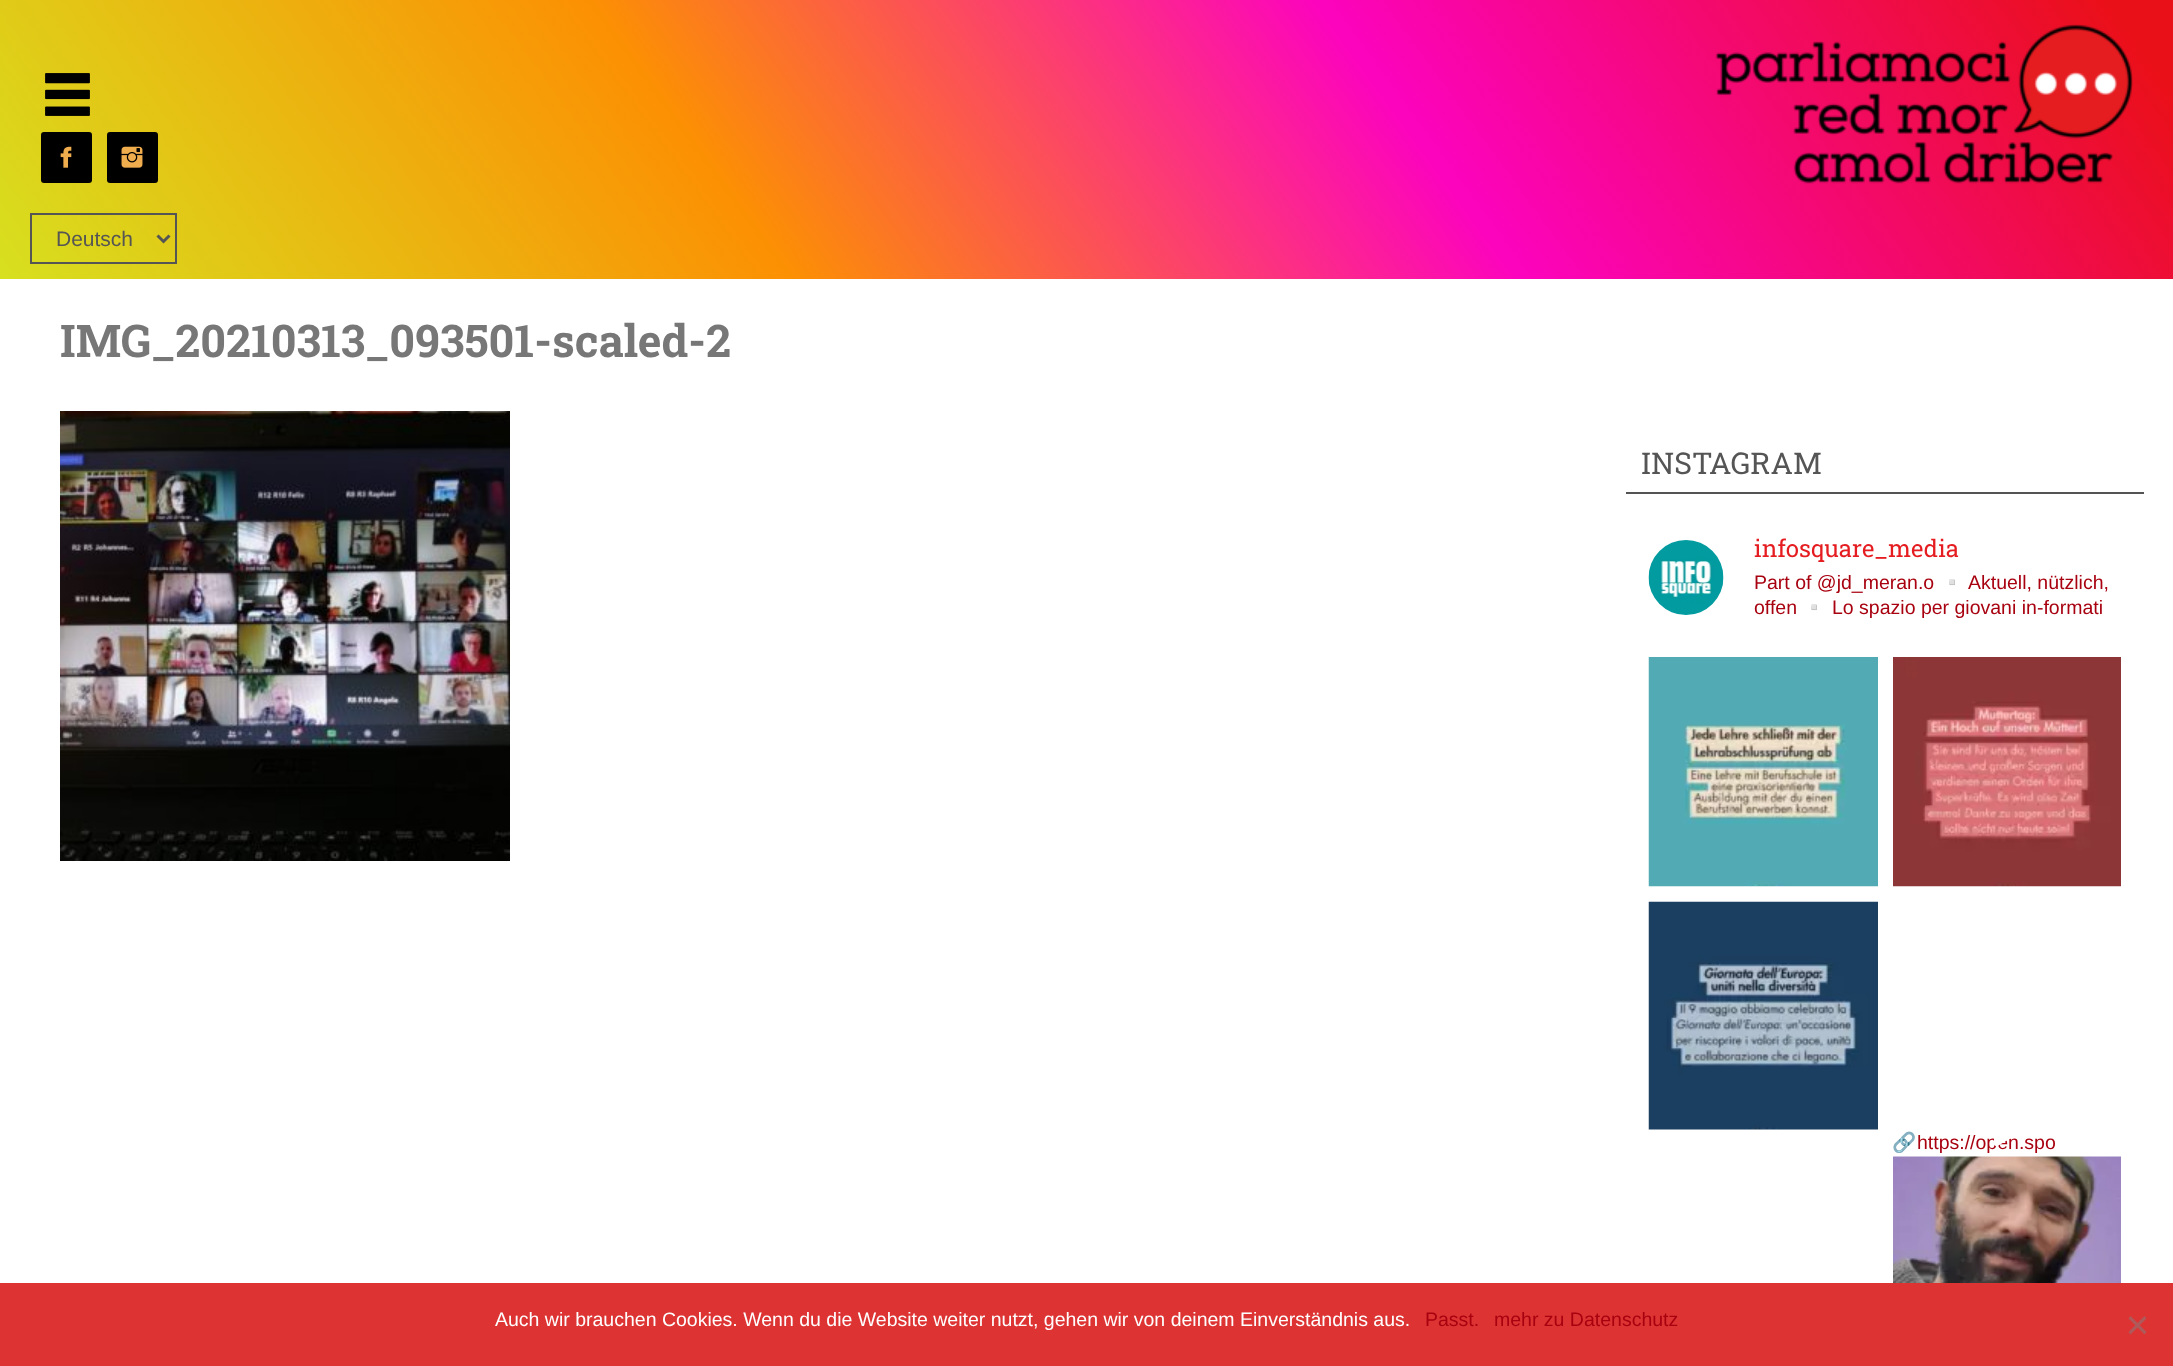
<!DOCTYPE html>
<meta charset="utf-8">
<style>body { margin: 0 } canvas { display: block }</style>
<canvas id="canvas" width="2173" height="1366"></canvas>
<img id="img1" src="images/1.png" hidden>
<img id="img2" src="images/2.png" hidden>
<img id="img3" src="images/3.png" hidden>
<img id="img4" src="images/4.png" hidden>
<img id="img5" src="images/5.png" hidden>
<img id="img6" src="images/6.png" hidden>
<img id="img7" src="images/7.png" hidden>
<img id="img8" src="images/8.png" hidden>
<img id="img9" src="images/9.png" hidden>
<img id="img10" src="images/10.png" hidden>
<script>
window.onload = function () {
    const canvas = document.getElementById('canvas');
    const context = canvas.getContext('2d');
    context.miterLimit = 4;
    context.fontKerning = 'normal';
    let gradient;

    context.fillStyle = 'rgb(255, 255, 255)';
    context.fillRect(0, 0, 2173, 1366);
    gradient = context.createLinearGradient(2123, -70, 51, 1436);
    gradient.addColorStop(0.02, 'rgb(234, 16, 23)');
    gradient.addColorStop(0.27, 'rgb(252, 3, 190)');
    gradient.addColorStop(0.5, 'rgb(252, 144, 3)');
    gradient.addColorStop(0.75, 'rgb(215, 224, 31)');
    gradient.addColorStop(0.95, 'rgb(24, 142, 160)');
    context.fillStyle = gradient;
    context.fillRect(0, 0, 2173, 279);
    context.drawImage(document.getElementById('img1'), 1715, 24, 418, 160);
    context.drawImage(document.getElementById('img2'), 45, 73, 45, 43);
    context.fillStyle = 'rgb(0, 0, 0)';
    context.beginPath();
    context.roundRect(41, 132, 51, 51, 3);
    context.fill();
    context.drawImage(document.getElementById('img3'), 60, 146, 12, 22);
    context.beginPath();
    context.roundRect(107, 132, 51, 51, 3);
    context.fill();
    context.drawImage(document.getElementById('img4'), 121, 146, 22, 22);
    context.strokeStyle = 'rgb(85, 85, 85)';
    context.lineWidth = 2;
    context.strokeRect(31, 214, 145, 49);
    context.beginPath();
    context.moveTo(157.5, 235.5);
    context.lineTo(163.5, 241.5);
    context.lineTo(169.5, 235.5);
    context.lineWidth = 3;
    context.stroke();
    context.drawImage(document.getElementById('img5'), 60, 411, 450, 450);
    context.fillStyle = 'rgb(85, 84, 84)';
    context.fillRect(1626, 492, 518, 2);
    context.drawImage(document.getElementById('img6'), 1648, 540, 76, 75);
    context.drawImage(document.getElementById('img7'), 1648, 657, 230, 230);
    context.drawImage(document.getElementById('img8'), 1893, 657, 228, 230);
    context.drawImage(document.getElementById('img9'), 1648, 901, 230, 229);
    context.drawImage(document.getElementById('img10'), 1893, 1156, 228, 127);
    context.fillStyle = 'rgb(221, 51, 51)';
    context.fillRect(0, 1283, 2173, 83);
    context.fillStyle = 'rgb(175, 90, 90)';
    context.beginPath();
    context.moveTo(2144.5, 1316);
    context.lineTo(2146.5, 1318.5);
    context.lineTo(2130.5, 1334.5);
    context.lineTo(2128.5, 1332);
    context.closePath();
    context.fill();
    context.beginPath();
    context.moveTo(2128.5, 1318.5);
    context.lineTo(2130.5, 1316);
    context.lineTo(2146.5, 1332);
    context.lineTo(2144.5, 1334.5);
    context.closePath();
    context.fill();
    context.font = '21px Liberation Sans';
    context.fillStyle = 'rgb(85, 85, 85)';
    context.fillText('Deutsch', 56, 246);
    context.font = 'bold 45px Roboto Slab';
    context.fillStyle = 'rgb(119, 119, 119)';
    context.fillText('IMG_20210313_093501-scaled-2', 60, 357);
    context.font = '30px Roboto Slab';
    context.fillStyle = 'rgb(85, 85, 85)';
    context.fillText('INSTAGRAM', 1641, 474);
    context.font = '24px Roboto Slab';
    context.fillStyle = 'rgb(229, 28, 32)';
    context.fillText('infosquare_media', 1754, 557);
    context.font = '19.5px Liberation Sans';
    context.fillStyle = 'rgb(168, 2, 16)';
    context.fillText('Part of @jd_meran.o', 1754, 589);
    context.font = '19.5px Noto Color Emoji';
    context.fillText('▫️', 1940, 589);
    context.font = '19.5px Liberation Sans';
    context.fillText('Aktuell, nützlich,', 1968, 589);
    context.fillText('offen', 1754, 614);
    context.font = '19.5px Noto Color Emoji';
    context.fillText('▫️', 1802, 614);
    context.font = '19.5px Liberation Sans';
    context.fillText('Lo spazio per giovani in-formati', 1832, 614);
    context.save();
    context.beginPath();
    context.rect(1893, 902, 228, 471);
    context.clip();
    context.font = '19.5px Noto Color Emoji';
    context.fillText('🔗', 1892, 1149);
    context.restore();
    context.fillText('https://open.spo', 1917, 1149);
    context.save();
    context.beginPath();
    context.rect(1994, 1112, 30, 34);
    context.clip();
    context.fillStyle = 'rgb(255, 255, 255)';
    context.beginPath();
    context.moveTo(2022, 1126);
    context.lineTo(1998.5, 1112);
    context.bezierCurveTo(1996.5, 1111, 1993.5, 1112, 1993.5, 1114.5);
    context.lineTo(1993.5, 1143);
    context.bezierCurveTo(1993.5, 1145.5, 1996, 1147, 1998.5, 1145.5);
    context.lineTo(2022, 1131.5);
    context.bezierCurveTo(2024, 1130.5, 2024, 1127, 2022, 1126);
    context.closePath();
    context.fill();
    context.restore();
    context.fillStyle = 'rgb(255, 255, 255)';
    context.fillText('Auch wir brauchen Cookies. Wenn du die Website weiter nutzt, gehen wir von deinem Einverständnis aus.', 495, 1326);
    context.fillStyle = 'rgb(168, 2, 16)';
    context.fillText('Passt.', 1425, 1326);
    context.fillText('mehr zu Datenschutz', 1494, 1326);
};
</script>
